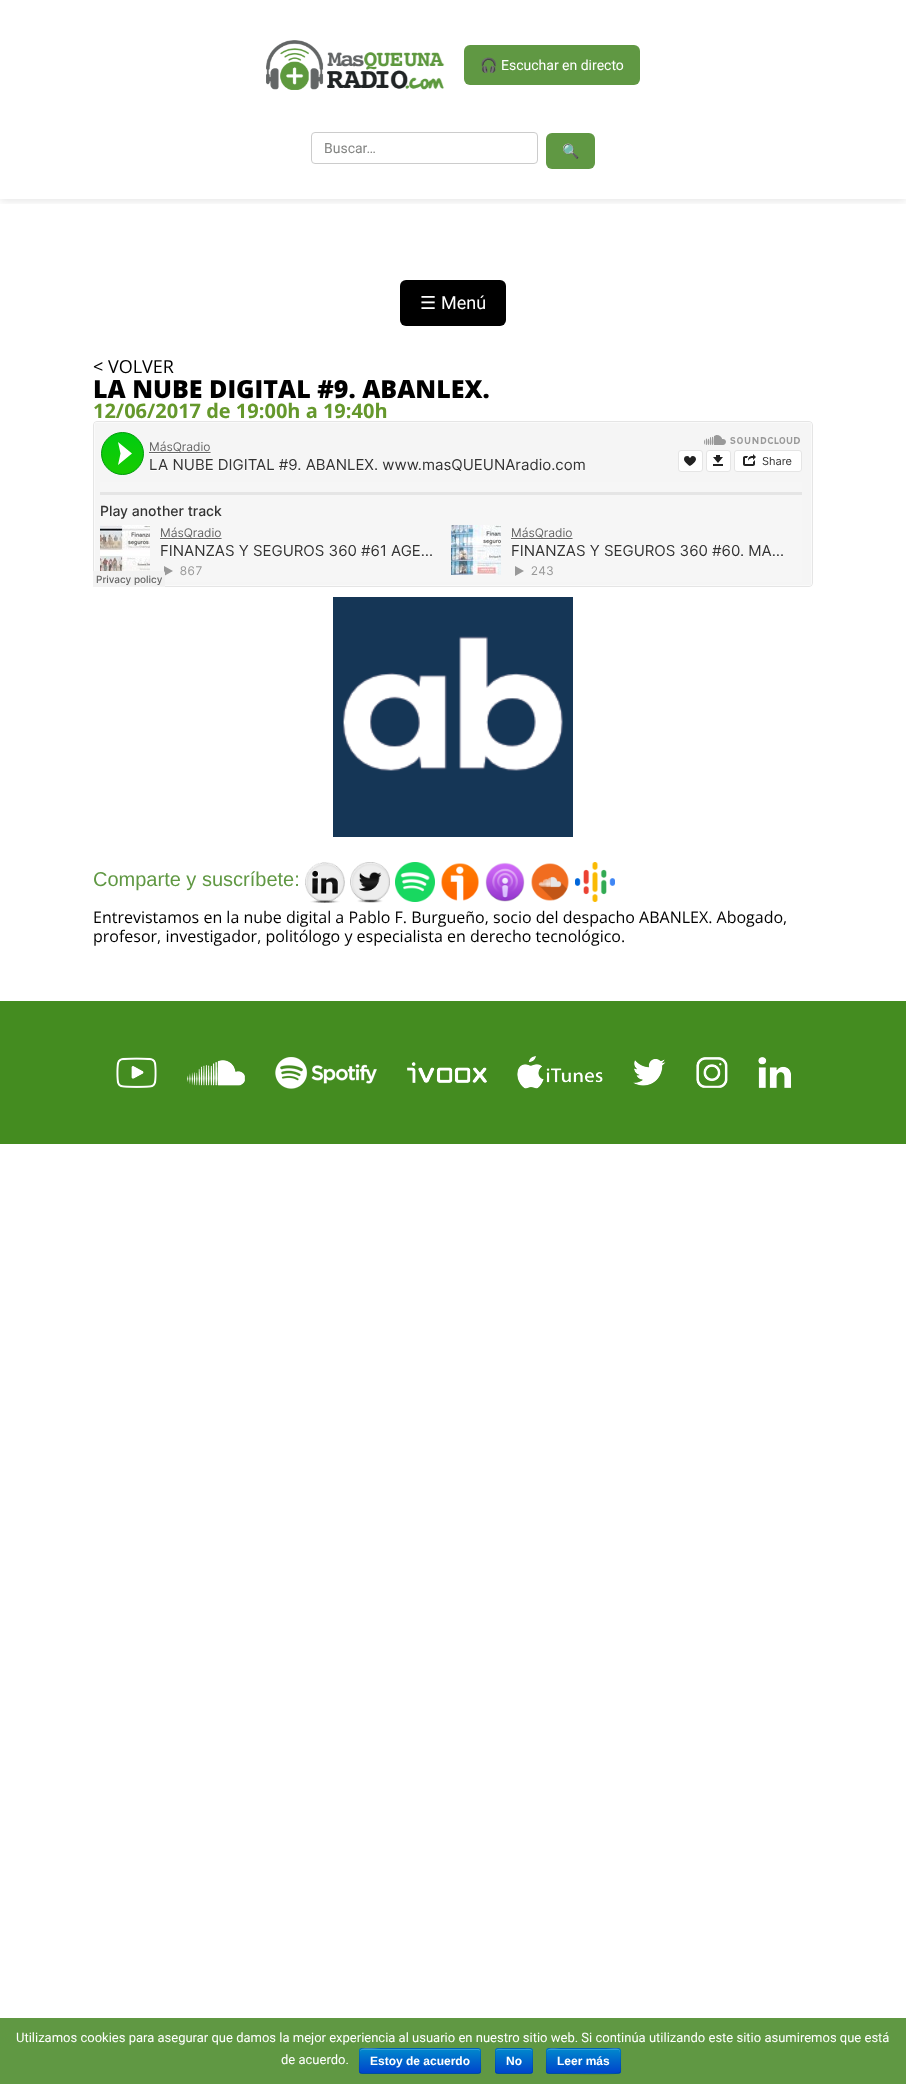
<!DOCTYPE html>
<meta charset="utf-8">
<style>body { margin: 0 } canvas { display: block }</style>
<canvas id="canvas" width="906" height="2084"></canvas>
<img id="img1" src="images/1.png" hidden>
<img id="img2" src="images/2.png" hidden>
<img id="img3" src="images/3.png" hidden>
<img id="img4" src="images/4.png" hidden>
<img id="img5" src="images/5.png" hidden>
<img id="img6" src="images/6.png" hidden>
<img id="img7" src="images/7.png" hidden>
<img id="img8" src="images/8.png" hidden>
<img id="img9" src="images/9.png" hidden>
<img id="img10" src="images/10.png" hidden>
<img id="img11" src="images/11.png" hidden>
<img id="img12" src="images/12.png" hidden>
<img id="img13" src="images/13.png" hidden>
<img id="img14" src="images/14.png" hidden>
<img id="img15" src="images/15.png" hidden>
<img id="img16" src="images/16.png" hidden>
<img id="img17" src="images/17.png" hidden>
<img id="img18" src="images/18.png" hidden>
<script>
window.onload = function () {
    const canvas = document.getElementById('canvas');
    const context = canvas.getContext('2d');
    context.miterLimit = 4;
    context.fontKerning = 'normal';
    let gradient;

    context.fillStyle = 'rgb(255, 255, 255)';
    context.fillRect(0, 0, 906, 2084);
    context.save();
    context.beginPath();
    context.rect(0, 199, 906, 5);
    context.clip();
    context.fillStyle = 'rgba(0, 0, 0, 0.1)';
    context.filter = 'blur(4px)';
    context.beginPath();
    context.rect(0, 2, 906, 199);
    context.fill();
    context.filter = 'none';
    context.restore();
    context.drawImage(document.getElementById('img1'), 266, 40, 179, 50);
    context.fillStyle = 'rgb(96, 152, 67)';
    context.beginPath();
    context.roundRect(464, 45, 176, 40, 6);
    context.fill();
    context.beginPath();
    context.roundRect(311.5, 132.5, 226, 31, 3.5);
    context.strokeStyle = 'rgb(204, 204, 204)';
    context.stroke();
    context.beginPath();
    context.roundRect(546, 133, 49, 36, 6);
    context.fill();
    context.fillStyle = 'rgb(0, 0, 0)';
    context.beginPath();
    context.roundRect(400, 280, 106, 46, 6);
    context.fill();
    context.drawImage(document.getElementById('img2'), 93, 421, 720, 166);
    context.drawImage(document.getElementById('img3'), 333, 597, 240, 240);
    context.drawImage(document.getElementById('img4'), 305, 862, 40, 41);
    context.drawImage(document.getElementById('img5'), 350, 862, 40, 41);
    context.drawImage(document.getElementById('img6'), 395, 862, 40, 40);
    context.drawImage(document.getElementById('img7'), 441, 863, 38, 38);
    context.drawImage(document.getElementById('img8'), 485, 862, 40, 40);
    context.drawImage(document.getElementById('img9'), 531, 863, 38, 38);
    context.drawImage(document.getElementById('img10'), 575, 862, 40, 40);
    context.fillStyle = 'rgb(68, 140, 32)';
    context.fillRect(0, 1001, 906, 143);
    context.drawImage(document.getElementById('img11'), 116, 1057, 41, 31);
    context.drawImage(document.getElementById('img12'), 187, 1060, 58, 26);
    context.drawImage(document.getElementById('img13'), 275, 1057, 102, 32);
    context.drawImage(document.getElementById('img14'), 407, 1062, 80, 21);
    context.drawImage(document.getElementById('img15'), 517, 1056, 86, 33);
    context.drawImage(document.getElementById('img16'), 633, 1059, 33, 27);
    context.drawImage(document.getElementById('img17'), 696, 1057, 32, 31);
    context.drawImage(document.getElementById('img18'), 758, 1057, 33, 31);
    context.fillStyle = 'rgb(96, 152, 67)';
    context.fillRect(0, 2018, 906, 66);
    context.fillStyle = 'rgb(0, 109, 204)';
    context.beginPath();
    context.roundRect(359, 2048, 122, 26, 3);
    context.fill();
    context.save();
    context.beginPath();
    context.roundRect(359, 2048, 122, 26, 3);
    context.clip();
    gradient = context.createLinearGradient(420, 2049, 420, 2073);
    gradient.addColorStop(0, 'rgb(0, 136, 204)');
    gradient.addColorStop(1, 'rgb(0, 68, 204)');
    context.fillStyle = gradient;
    context.fillRect(359, 2049, 122, 24);
    context.restore();
    context.fillStyle = 'rgba(255, 255, 255, 0.2)';
    context.beginPath();
    context.moveTo(362, 2050);
    context.lineTo(478, 2050);
    context.bezierCurveTo(479, 2050, 480, 2051, 480, 2052);
    context.bezierCurveTo(480, 2051, 480, 2050, 479, 2049);
    context.lineTo(381, 2049);
    context.bezierCurveTo(375, 2049, 360, 2045, 360, 2052);
    context.bezierCurveTo(360, 2051, 361, 2050, 362, 2050);
    context.closePath();
    context.fill();
    context.beginPath();
    context.moveTo(480, 2073);
    context.lineTo(478, 2073.5);
    context.lineTo(362, 2073.5);
    context.lineTo(360, 2073);
    context.strokeStyle = 'rgba(0, 0, 0, 0.25)';
    context.stroke();
    context.beginPath();
    context.moveTo(360, 2073);
    context.bezierCurveTo(358.5, 2071, 359.5, 2063.5, 359.5, 2061);
    context.lineTo(359.5, 2054.5);
    context.bezierCurveTo(359.5, 2052.5, 359, 2048.5, 362, 2048.5);
    context.lineTo(478, 2048.5);
    context.bezierCurveTo(481, 2048.5, 480.5, 2052.5, 480.5, 2054.5);
    context.lineTo(480.5, 2061);
    context.bezierCurveTo(480.5, 2063.5, 481.5, 2071, 480, 2073);
    context.strokeStyle = 'rgba(0, 0, 0, 0.1)';
    context.stroke();
    context.fillStyle = 'rgb(0, 109, 204)';
    context.beginPath();
    context.roundRect(495, 2048, 38, 26, 3);
    context.fill();
    context.save();
    context.beginPath();
    context.roundRect(495, 2048, 38, 26, 3);
    context.clip();
    gradient = context.createLinearGradient(514, 2049, 514, 2073);
    gradient.addColorStop(0, 'rgb(0, 136, 204)');
    gradient.addColorStop(1, 'rgb(0, 68, 204)');
    context.fillStyle = gradient;
    context.fillRect(495, 2049, 38, 24);
    context.restore();
    context.fillStyle = 'rgba(255, 255, 255, 0.2)';
    context.beginPath();
    context.moveTo(498, 2050);
    context.lineTo(530, 2050);
    context.bezierCurveTo(531, 2050, 532, 2051, 532, 2052);
    context.bezierCurveTo(532, 2047.5, 528.5, 2049, 524.5, 2049);
    context.lineTo(503.5, 2049);
    context.bezierCurveTo(499.5, 2049, 496, 2047.5, 496, 2052);
    context.bezierCurveTo(496, 2051, 497, 2050, 498, 2050);
    context.closePath();
    context.fill();
    context.beginPath();
    context.moveTo(532, 2073);
    context.bezierCurveTo(531.5, 2073, 530.5, 2073.5, 530, 2073.5);
    context.lineTo(498, 2073.5);
    context.bezierCurveTo(497.5, 2073.5, 496.5, 2073, 496, 2073);
    context.strokeStyle = 'rgba(0, 0, 0, 0.25)';
    context.stroke();
    context.beginPath();
    context.moveTo(496, 2073);
    context.bezierCurveTo(496, 2072.5, 495.5, 2071.5, 495.5, 2071);
    context.lineTo(495.5, 2051);
    context.bezierCurveTo(495.5, 2050.5, 496, 2049.5, 496, 2049);
    context.bezierCurveTo(496.5, 2049, 497.5, 2048.5, 498, 2048.5);
    context.lineTo(530, 2048.5);
    context.bezierCurveTo(530.5, 2048.5, 531.5, 2049, 532, 2049);
    context.bezierCurveTo(532, 2049.5, 532.5, 2050.5, 532.5, 2051);
    context.lineTo(532.5, 2071);
    context.bezierCurveTo(532.5, 2071.5, 532, 2072.5, 532, 2073);
    context.strokeStyle = 'rgba(0, 0, 0, 0.1)';
    context.stroke();
    context.fillStyle = 'rgb(0, 109, 204)';
    context.beginPath();
    context.roundRect(546, 2048, 75, 26, 3);
    context.fill();
    context.save();
    context.beginPath();
    context.roundRect(546, 2048, 75, 26, 3);
    context.clip();
    gradient = context.createLinearGradient(584, 2049, 584, 2073);
    gradient.addColorStop(0, 'rgb(0, 136, 204)');
    gradient.addColorStop(1, 'rgb(0, 68, 204)');
    context.fillStyle = gradient;
    context.fillRect(546, 2049, 75, 24);
    context.restore();
    context.fillStyle = 'rgba(255, 255, 255, 0.2)';
    context.beginPath();
    context.moveTo(549, 2050);
    context.lineTo(619, 2050);
    context.lineTo(620, 2053);
    context.bezierCurveTo(620, 2046, 615, 2049, 606, 2049);
    context.lineTo(560, 2049);
    context.bezierCurveTo(555, 2049, 547, 2046, 547, 2053);
    context.bezierCurveTo(547, 2051, 548, 2050, 549, 2050);
    context.closePath();
    context.moveTo(620, 2069);
    context.lineTo(620, 2072);
    context.closePath();
    context.fill('evenodd');
    context.beginPath();
    context.moveTo(620, 2073);
    context.lineTo(619.5, 2073);
    context.bezierCurveTo(617.5, 2074.5, 567, 2073.5, 560.5, 2073.5);
    context.lineTo(549, 2073.5);
    context.lineTo(547, 2073);
    context.strokeStyle = 'rgba(0, 0, 0, 0.25)';
    context.stroke();
    context.beginPath();
    context.moveTo(547, 2073);
    context.bezierCurveTo(545.5, 2071, 546.5, 2063.5, 546.5, 2061);
    context.bezierCurveTo(546.5, 2046, 544, 2048.5, 560.5, 2048.5);
    context.lineTo(606.5, 2048.5);
    context.bezierCurveTo(624, 2048.5, 620.5, 2046, 620.5, 2064.5);
    context.bezierCurveTo(620.5, 2066.5, 621.5, 2071, 620, 2073);
    context.strokeStyle = 'rgba(0, 0, 0, 0.1)';
    context.stroke();
    context.font = 'bold 14px Noto Color Emoji';
    context.fillStyle = 'rgb(255, 255, 255)';
    context.fillText('🎧', 480, 70);
    context.font = '14px Roboto';
    context.fillText('Escuchar en directo', 501, 70);
    context.fillStyle = 'rgb(132, 133, 131)';
    context.fillText('Buscar…', 324, 153);
    context.font = 'bold 14px "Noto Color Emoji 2"';
    context.fillStyle = 'rgb(255, 255, 255)';
    context.fillText('🔍', 562, 156);
    context.font = '18px DejaVu Sans';
    context.fillText('☰', 420, 309);
    context.font = '18px Roboto';
    context.fillText('Menú', 441, 309);
    context.font = '18px Open Sans';
    context.fillStyle = 'rgb(0, 0, 0)';
    context.fillText('< VOLVER', 93, 373);
    context.font = '800 25px Open Sans';
    context.fillText('LA NUBE DIGITAL #9. ABANLEX.', 93, 398);
    context.font = 'bold 20px Open Sans';
    context.fillStyle = 'rgb(101, 152, 44)';
    context.fillText('12/06/2017 de 19:00h a 19:40h', 93, 418);
    context.font = '20px Liberation Sans';
    context.fillStyle = 'rgb(96, 152, 67)';
    context.fillText('Comparte y suscríbete:', 93, 886);
    context.font = '16px Open Sans';
    context.fillStyle = 'rgb(0, 0, 0)';
    context.fillText('Entrevistamos en la nube digital a Pablo F. Burgueño, socio del despacho ABANLEX. Abogado,', 93, 923);
    context.fillText('profesor, investigador, politólogo y especialista en derecho tecnológico.', 93, 942);
    context.font = '13px Roboto';
    context.fillStyle = 'rgb(255, 255, 255)';
    context.fillText('Utilizamos cookies para asegurar que damos la mejor experiencia al usuario en nuestro sitio web. Si continúa utilizando este sitio asumiremos que está', 16, 2042);
    context.fillText('de acuerdo.', 281, 2064);
    context.font = 'bold 12px Liberation Sans';
    context.fillText('Estoy de acuerdo', 370, 2065);
    context.fillText('No', 506, 2065);
    context.fillText('Leer más', 557, 2065);
};
</script>
